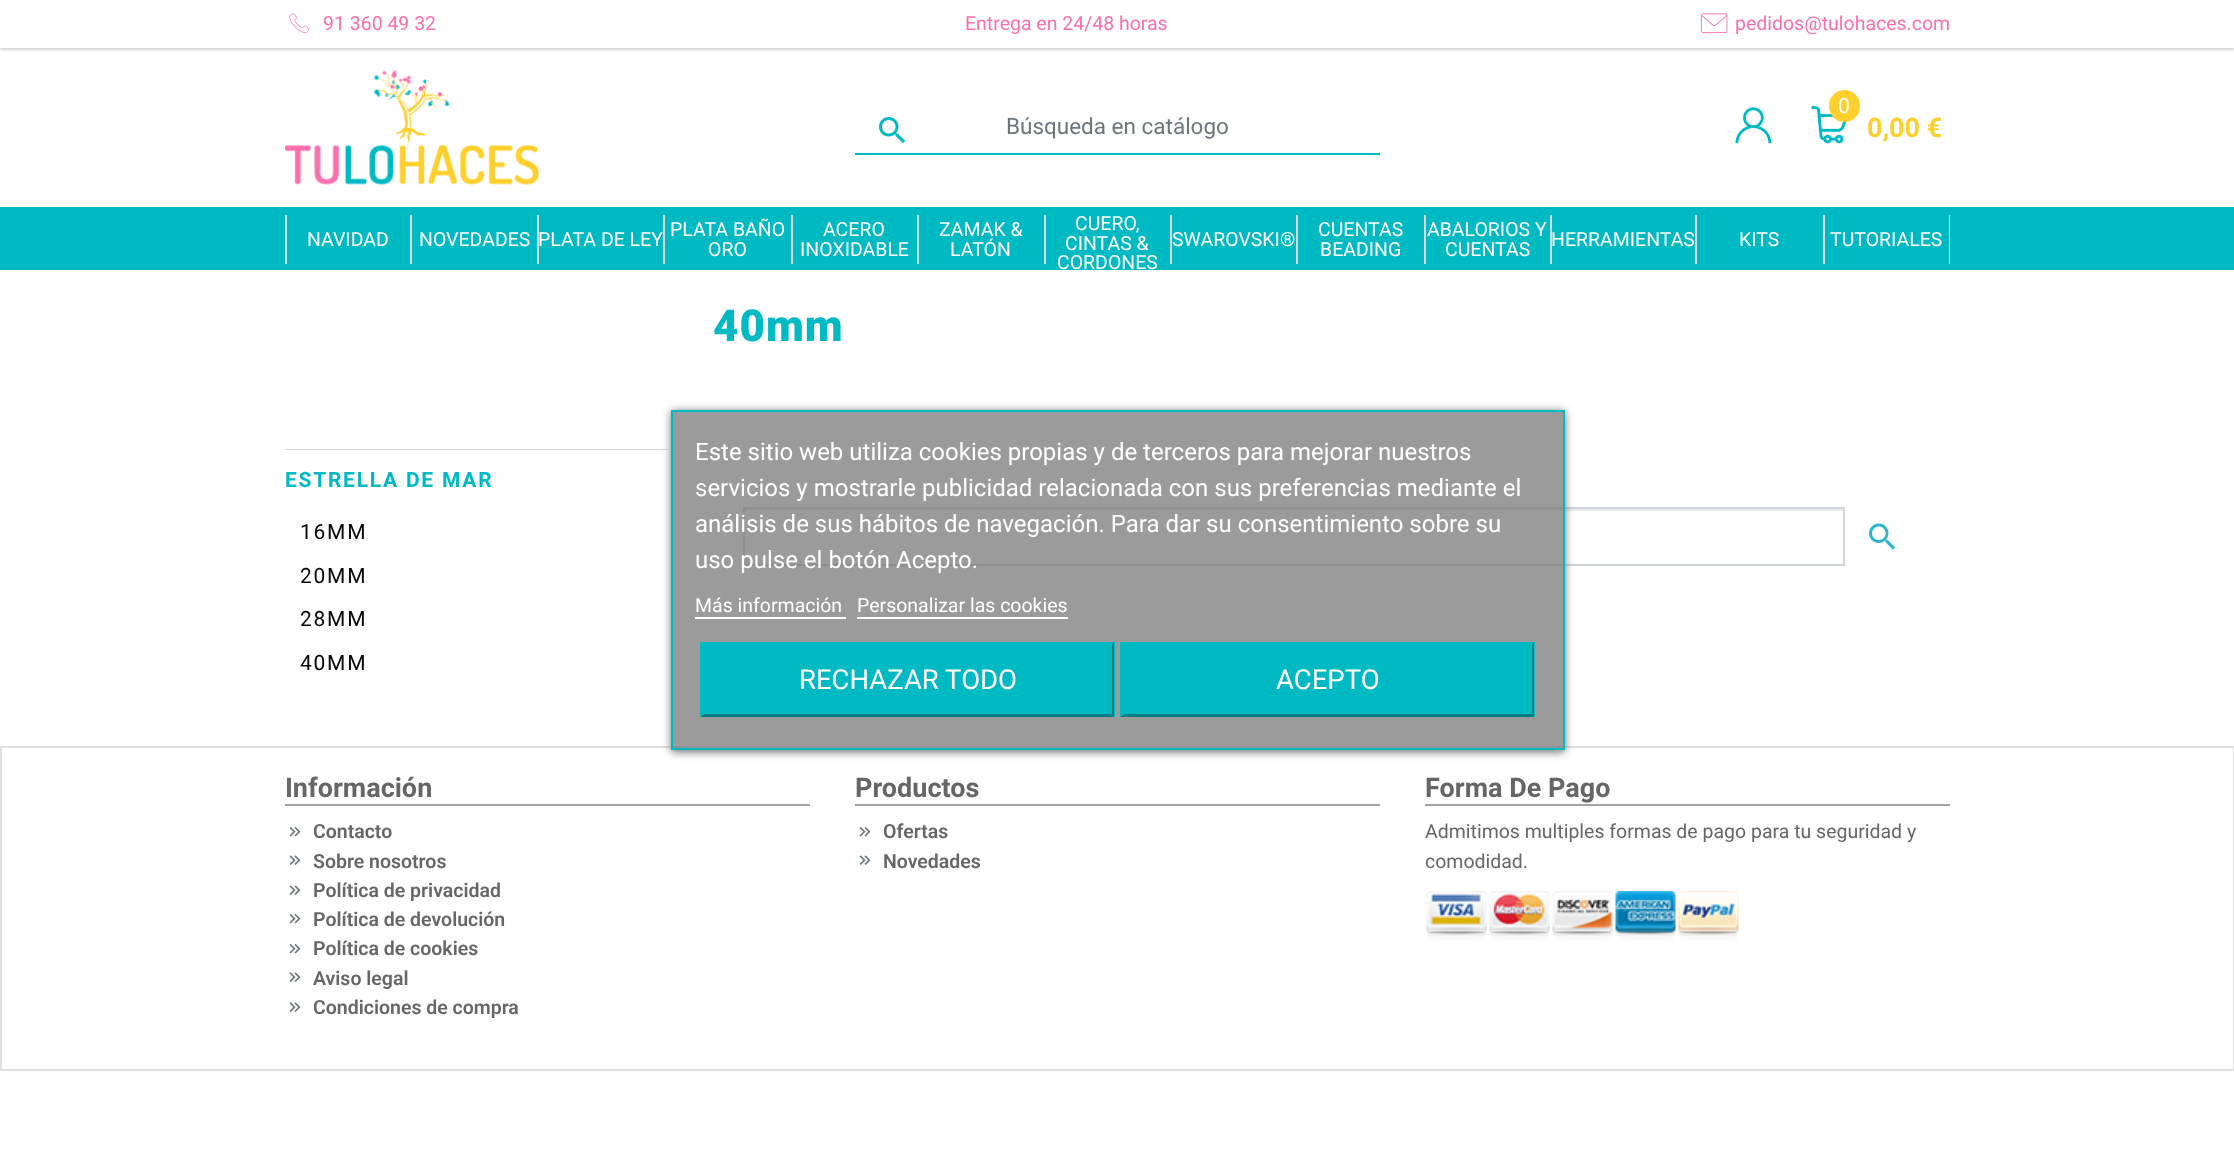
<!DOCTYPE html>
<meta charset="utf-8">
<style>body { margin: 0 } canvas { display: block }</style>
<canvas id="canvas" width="2234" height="1159"></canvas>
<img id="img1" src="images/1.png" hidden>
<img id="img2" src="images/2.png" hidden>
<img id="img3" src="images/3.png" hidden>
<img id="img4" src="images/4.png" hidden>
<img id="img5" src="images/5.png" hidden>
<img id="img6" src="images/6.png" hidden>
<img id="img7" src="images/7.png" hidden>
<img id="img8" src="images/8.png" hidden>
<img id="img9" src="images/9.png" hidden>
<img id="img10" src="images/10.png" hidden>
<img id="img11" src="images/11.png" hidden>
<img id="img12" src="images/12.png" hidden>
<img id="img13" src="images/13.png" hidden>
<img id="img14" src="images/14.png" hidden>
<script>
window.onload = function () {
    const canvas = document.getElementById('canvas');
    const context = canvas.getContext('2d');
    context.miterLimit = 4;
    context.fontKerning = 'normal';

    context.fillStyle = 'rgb(255, 255, 255)';
    context.fillRect(0, 0, 2234, 1159);
    context.save();
    context.beginPath();
    context.rect(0, 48, 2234, 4);
    context.clip();
    context.fillStyle = 'rgba(0, 0, 0, 0.18)';
    context.filter = 'blur(1.5px)';
    context.beginPath();
    context.rect(0, 2, 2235, 48);
    context.fill();
    context.filter = 'none';
    context.restore();
    context.drawImage(document.getElementById('img1'), 289, 13, 20, 20);
    context.drawImage(document.getElementById('img2'), 1701, 13, 27, 20);
    context.drawImage(document.getElementById('img3'), 285, 70, 254, 115);
    context.drawImage(document.getElementById('img4'), 879, 117, 27, 27);
    context.fillStyle = 'rgb(0, 186, 195)';
    context.fillRect(855, 153, 525, 2);
    context.drawImage(document.getElementById('img5'), 1735, 107, 37, 37);
    context.drawImage(document.getElementById('img6'), 1811, 106, 36, 38);
    context.fillStyle = 'rgb(255, 207, 44)';
    context.beginPath();
    context.roundRect(1829, 90, 31, 32, 15.5);
    context.fill();
    context.fillStyle = 'rgb(0, 186, 195)';
    context.fillRect(0, 207, 2234, 63);
    context.fillStyle = 'rgb(216, 216, 216)';
    context.fillRect(410, 215, 2, 49);
    context.fillRect(285, 215, 2, 49);
    context.fillRect(537, 215, 2, 49);
    context.fillRect(663, 215, 2, 49);
    context.fillRect(791, 215, 2, 49);
    context.fillRect(917, 215, 2, 49);
    context.fillRect(1044, 215, 2, 49);
    context.fillRect(1170, 215, 2, 49);
    context.fillRect(1296, 215, 2, 49);
    context.fillRect(1424, 215, 2, 49);
    context.fillRect(1550, 215, 2, 49);
    context.fillRect(1695, 215, 2, 49);
    context.fillRect(1823, 215, 2, 49);
    context.fillRect(1949, 215, 1, 49);
    context.fillStyle = 'rgb(236, 236, 236)';
    context.fillRect(744, 509, 1100, 2);
    context.strokeStyle = 'rgb(206, 212, 218)';
    context.lineWidth = 2;
    context.strokeRect(744, 508, 1100, 57);
    context.drawImage(document.getElementById('img7'), 1869, 523, 27, 27);
    context.fillStyle = 'rgb(216, 216, 216)';
    context.fillRect(285, 449, 383, 1);
    context.strokeStyle = 'rgb(223, 223, 223)';
    context.strokeRect(1, 747, 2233, 323);
    context.save();
    context.beginPath();
    context.moveTo(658, 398);
    context.lineTo(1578, 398);
    context.lineTo(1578, 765);
    context.lineTo(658, 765);
    context.closePath();
    context.moveTo(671, 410);
    context.lineTo(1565, 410);
    context.lineTo(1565, 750);
    context.lineTo(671, 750);
    context.closePath();
    context.clip('evenodd');
    context.fillStyle = 'rgb(112, 112, 112)';
    context.filter = 'blur(4px)';
    context.beginPath();
    context.rect(671, 411, 894, 341);
    context.fill();
    context.filter = 'none';
    context.restore();
    context.fillStyle = 'rgba(112, 112, 112, 0.7)';
    context.beginPath();
    context.rect(672, 411, 892, 338);
    context.fill();
    context.strokeStyle = 'rgb(0, 186, 195)';
    context.stroke();
    context.fillStyle = 'rgb(255, 255, 255)';
    context.fillRect(695, 617, 151, 2);
    context.fillRect(857, 617, 211, 2);
    context.fillStyle = 'rgb(0, 186, 195)';
    context.fillRect(701, 642, 414, 75);
    context.beginPath();
    context.moveTo(700, 642);
    context.lineTo(1114, 642);
    context.lineTo(1112, 645);
    context.lineTo(704, 645);
    context.closePath();
    context.fill();
    context.fillStyle = 'rgb(0, 124, 130)';
    context.beginPath();
    context.moveTo(1114, 642);
    context.lineTo(1114, 717);
    context.lineTo(1112, 714);
    context.lineTo(1112, 645);
    context.closePath();
    context.fill();
    context.beginPath();
    context.moveTo(1114, 717);
    context.lineTo(700, 717);
    context.lineTo(704, 714);
    context.lineTo(1112, 714);
    context.closePath();
    context.fill();
    context.fillStyle = 'rgb(0, 186, 195)';
    context.beginPath();
    context.moveTo(700, 717);
    context.lineTo(700, 642);
    context.lineTo(704, 645);
    context.lineTo(704, 714);
    context.closePath();
    context.fill();
    context.fillRect(1121, 642, 414, 75);
    context.beginPath();
    context.moveTo(1120, 642);
    context.lineTo(1534, 642);
    context.lineTo(1532, 645);
    context.lineTo(1124, 645);
    context.closePath();
    context.fill();
    context.fillStyle = 'rgb(0, 124, 130)';
    context.beginPath();
    context.moveTo(1534, 642);
    context.lineTo(1534, 717);
    context.lineTo(1532, 714);
    context.lineTo(1532, 645);
    context.closePath();
    context.fill();
    context.beginPath();
    context.moveTo(1534, 717);
    context.lineTo(1120, 717);
    context.lineTo(1124, 714);
    context.lineTo(1532, 714);
    context.closePath();
    context.fill();
    context.fillStyle = 'rgb(0, 186, 195)';
    context.beginPath();
    context.moveTo(1120, 717);
    context.lineTo(1120, 642);
    context.lineTo(1124, 645);
    context.lineTo(1124, 714);
    context.closePath();
    context.fill();
    context.fillStyle = 'rgb(163, 163, 163)';
    context.fillRect(285, 804, 525, 2);
    context.drawImage(document.getElementById('img8'), 289, 826, 12, 11);
    context.drawImage(document.getElementById('img9'), 289, 855, 12, 10);
    context.drawImage(document.getElementById('img9'), 289, 885, 12, 10);
    context.drawImage(document.getElementById('img8'), 289, 913, 12, 11);
    context.drawImage(document.getElementById('img8'), 289, 943, 12, 11);
    context.drawImage(document.getElementById('img9'), 289, 972, 12, 10);
    context.drawImage(document.getElementById('img9'), 289, 1002, 12, 10);
    context.fillRect(855, 804, 525, 2);
    context.drawImage(document.getElementById('img8'), 859, 826, 12, 11);
    context.drawImage(document.getElementById('img9'), 859, 855, 12, 10);
    context.fillRect(1425, 804, 525, 2);
    context.drawImage(document.getElementById('img10'), 1426, 891, 61, 49);
    context.drawImage(document.getElementById('img11'), 1489, 891, 61, 49);
    context.drawImage(document.getElementById('img12'), 1552, 891, 61, 49);
    context.drawImage(document.getElementById('img13'), 1615, 891, 61, 49);
    context.drawImage(document.getElementById('img14'), 1678, 891, 61, 49);
    context.font = '19.5px Roboto';
    context.fillStyle = 'rgb(249, 112, 173)';
    context.fillText('91 360 49 32', 323, 30);
    context.fillText('Entrega en 24/48 horas', 965, 30);
    context.fillText('pedidos@tulohaces.com', 1735, 30);
    context.font = '22.5px Roboto';
    context.fillStyle = 'rgb(108, 117, 125)';
    context.fillText('Búsqueda en catálogo', 1006, 134);
    context.font = '21px "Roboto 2"';
    context.fillStyle = 'rgb(255, 255, 255)';
    context.fillText('0', 1838, 113);
    context.font = 'bold 27px Roboto';
    context.fillStyle = 'rgb(255, 207, 44)';
    context.fillText('0,00 €', 1867, 137);
    context.font = '19.5px Roboto';
    context.fillStyle = 'rgb(255, 255, 255)';
    context.fillText('NAVIDAD', 307, 246);
    context.fillText('NOVEDADES', 419, 246);
    context.fillText('PLATA DE LEY', 538, 246);
    context.fillText('PLATA BAÑO', 670, 236);
    context.fillText('ORO', 708, 256);
    context.fillText('ACERO', 823, 236);
    context.fillText('INOXIDABLE', 800, 256);
    context.fillText('ZAMAK &', 939, 236);
    context.fillText('LATÓN', 950, 256);
    context.fillText('CUERO,', 1075, 230);
    context.fillText('CINTAS &', 1065, 250);
    context.fillText('CORDONES', 1057, 269);
    context.fillText('SWAROVSKI®', 1172, 246);
    context.fillText('CUENTAS', 1318, 236);
    context.fillText('BEADING', 1320, 256);
    context.fillText('ABALORIOS Y', 1427, 236);
    context.fillText('CUENTAS', 1445, 256);
    context.fillText('HERRAMIENTAS', 1551, 246);
    context.fillText('KITS', 1739, 246);
    context.fillText('TUTORIALES', 1830, 246);
    context.letterSpacing = '1px';
    context.font = '900 44px Roboto';
    context.fillStyle = 'rgb(0, 186, 195)';
    context.fillText('40mm', 713, 341);
    context.letterSpacing = '1.75px';
    context.font = 'bold 21px Roboto';
    context.fillText('ESTRELLA DE MAR', 285, 487);
    context.font = '21px Roboto';
    context.fillStyle = 'rgb(5, 5, 5)';
    context.fillText('16MM', 300, 539);
    context.fillText('20MM', 300, 583);
    context.fillText('28MM', 300, 626);
    context.fillText('40MM', 300, 670);
    context.letterSpacing = '0px';
    context.font = '24px "Roboto 2"';
    context.fillStyle = 'rgb(255, 255, 255)';
    context.fillText('Este sitio web utiliza cookies propias y de terceros para mejorar nuestros', 695, 460);
    context.fillText('servicios y mostrarle publicidad relacionada con sus preferencias mediante el', 695, 496);
    context.fillText('análisis de sus hábitos de navegación. Para dar su consentimiento sobre su', 695, 532);
    context.fillText('uso pulse el botón Acepto.', 695, 568);
    context.font = '19.5px "Roboto 2"';
    context.fillText('Más información', 695, 612);
    context.fillText('Personalizar las cookies', 857, 612);
    context.font = '27.5px "Roboto 2"';
    context.fillText('RECHAZAR TODO', 799, 689);
    context.fillText('ACEPTO', 1276, 689);
    context.font = 'bold 27px Roboto';
    context.fillStyle = 'rgb(102, 102, 102)';
    context.fillText('Información', 285, 797);
    context.font = '600 19.5px Roboto';
    context.fillText('Contacto', 313, 838);
    context.fillText('Sobre nosotros', 313, 868);
    context.fillText('Política de privacidad', 313, 897);
    context.fillText('Política de devolución', 313, 926);
    context.fillText('Política de cookies', 313, 955);
    context.fillText('Aviso legal', 313, 985);
    context.fillText('Condiciones de compra', 313, 1014);
    context.font = 'bold 27px Roboto';
    context.fillText('Productos', 855, 797);
    context.font = '600 19.5px Roboto';
    context.fillText('Ofertas', 883, 838);
    context.fillText('Novedades', 883, 868);
    context.font = 'bold 27px Roboto';
    context.fillText('Forma De Pago', 1425, 797);
    context.font = '19.5px Roboto';
    context.fillText('Admitimos multiples formas de pago para tu seguridad y', 1425, 838);
    context.fillText('comodidad.', 1425, 868);
};
</script>
